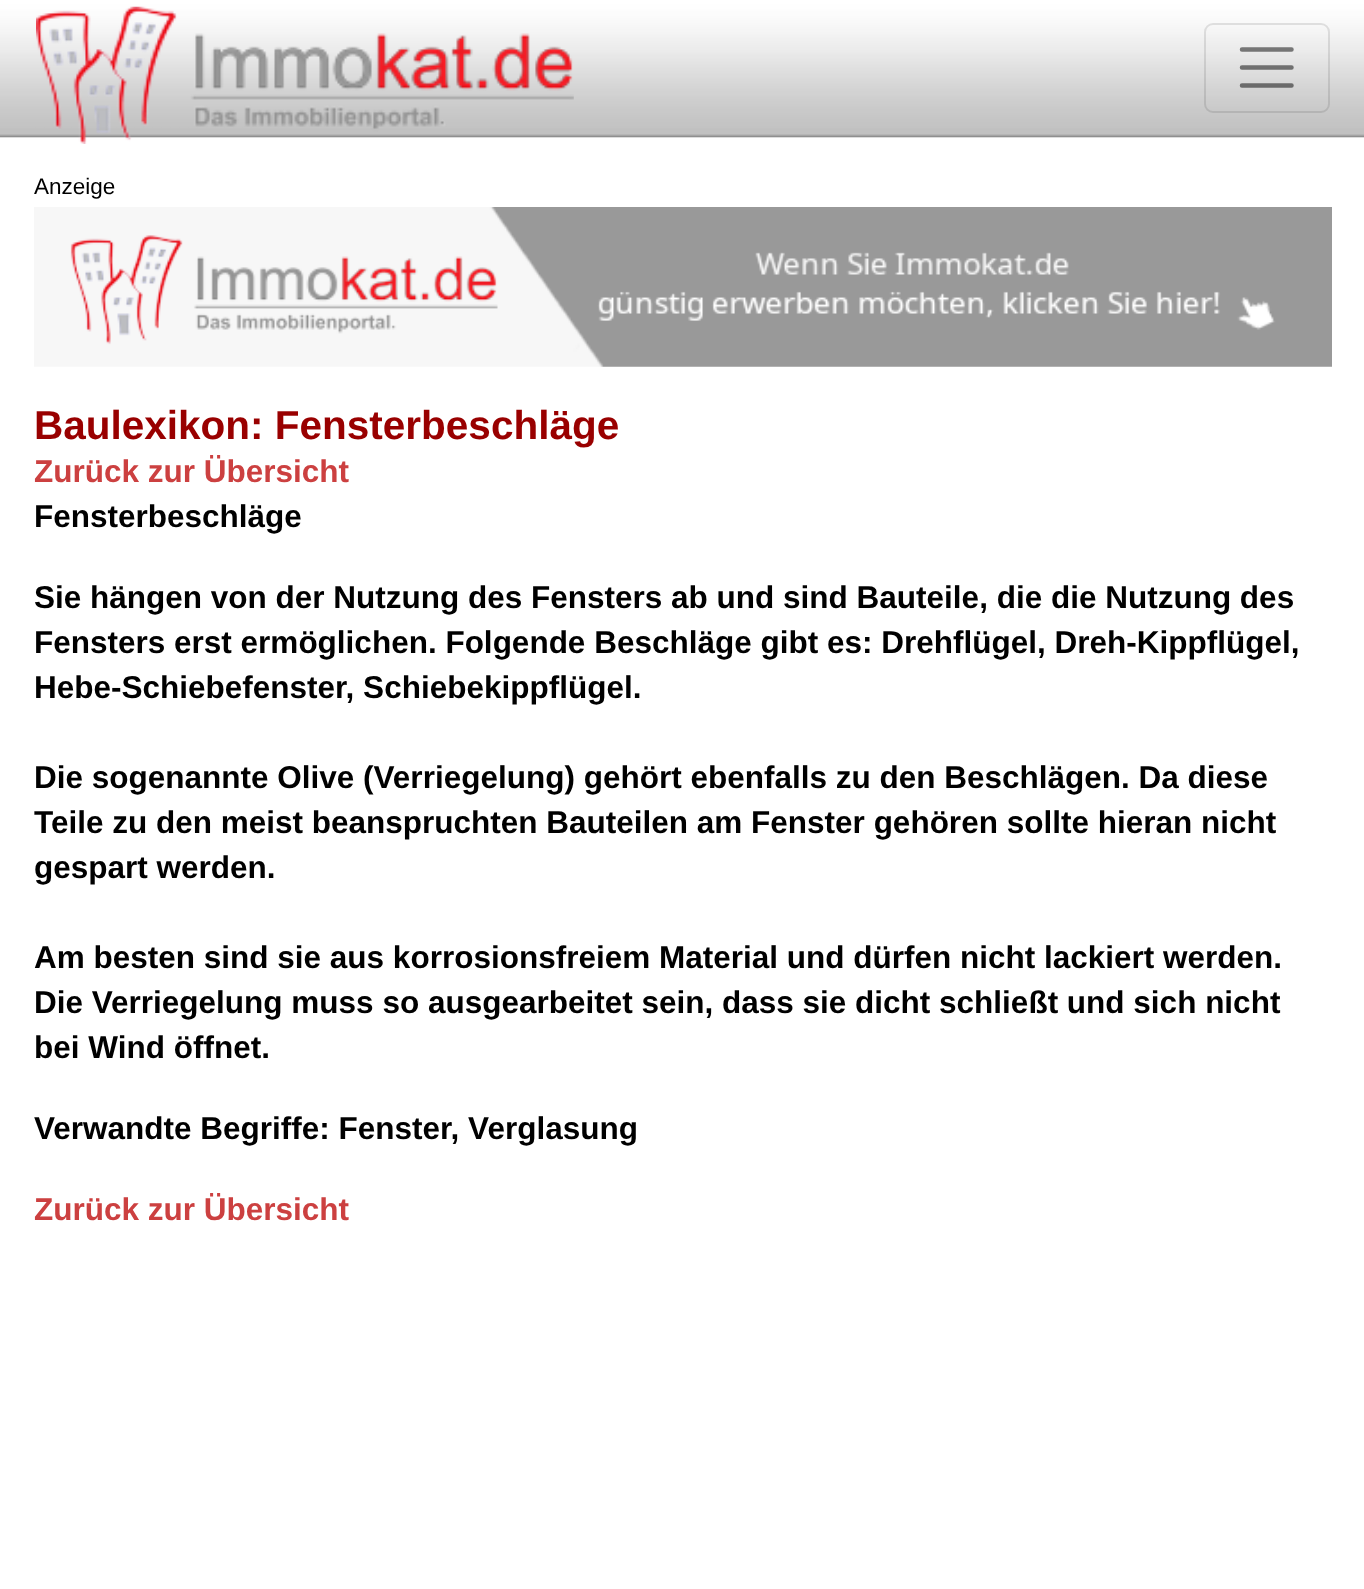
<!DOCTYPE html>
<meta charset="utf-8">
<style>body { margin: 0 } canvas { display: block }</style>
<canvas id="canvas" width="1364" height="1589"></canvas>
<img id="img1" src="images/1.png" hidden>
<img id="img2" src="images/2.png" hidden>
<img id="img3" src="images/3.png" hidden>
<script>
window.onload = function () {
    const canvas = document.getElementById('canvas');
    const context = canvas.getContext('2d');
    context.miterLimit = 4;
    context.fontKerning = 'normal';

    context.fillStyle = 'rgb(255, 255, 255)';
    context.fillRect(0, 0, 1364, 1589);
    context.drawImage(document.getElementById('img1'), 0, 0, 1364, 138);
    context.drawImage(document.getElementById('img2'), 36, 6, 538, 138);
    context.beginPath();
    context.roundRect(1205, 24, 124, 88, 8);
    context.strokeStyle = 'rgba(0, 0, 0, 0.1)';
    context.lineWidth = 2;
    context.stroke();
    context.beginPath();
    context.moveTo(1242, 49.5);
    context.lineTo(1291.5, 49.5);
    context.moveTo(1242, 67.5);
    context.lineTo(1291.5, 67.5);
    context.moveTo(1242, 85.5);
    context.lineTo(1291.5, 85.5);
    context.strokeStyle = 'rgba(0, 0, 0, 0.5)';
    context.lineWidth = 4.5;
    context.lineCap = 'round';
    context.stroke();
    context.drawImage(document.getElementById('img3'), 34, 207, 1298, 160);
    context.font = '22.5px Liberation Sans';
    context.fillStyle = 'rgb(0, 0, 0)';
    context.fillText('Anzeige', 34, 194);
    context.font = 'bold 40.5px Liberation Sans';
    context.fillStyle = 'rgb(153, 0, 0)';
    context.fillText('Baulexikon: Fensterbeschläge', 34, 439);
    context.font = 'bold 31.5px Liberation Sans';
    context.fillStyle = 'rgb(204, 64, 64)';
    context.fillText('Zurück zur Übersicht', 34, 482);
    context.fillStyle = 'rgb(0, 0, 0)';
    context.fillText('Fensterbeschläge', 34, 527);
    context.fillText('Sie hängen von der Nutzung des Fensters ab und sind Bauteile, die die Nutzung des', 34, 608);
    context.fillText('Fensters erst ermöglichen. Folgende Beschläge gibt es: Drehflügel, Dreh-Kippflügel,', 34, 653);
    context.fillText('Hebe-Schiebefenster, Schiebekippflügel.', 34, 698);
    context.fillText('Die sogenannte Olive (Verriegelung) gehört ebenfalls zu den Beschlägen. Da diese', 34, 788);
    context.fillText('Teile zu den meist beanspruchten Bauteilen am Fenster gehören sollte hieran nicht', 34, 833);
    context.fillText('gespart werden.', 34, 878);
    context.fillText('Am besten sind sie aus korrosionsfreiem Material und dürfen nicht lackiert werden.', 34, 968);
    context.fillText('Die Verriegelung muss so ausgearbeitet sein, dass sie dicht schließt und sich nicht', 34, 1013);
    context.fillText('bei Wind öffnet.', 34, 1058);
    context.fillText('Verwandte Begriffe: Fenster, Verglasung', 34, 1139);
    context.fillStyle = 'rgb(204, 64, 64)';
    context.fillText('Zurück zur Übersicht', 34, 1220);
};
</script>
